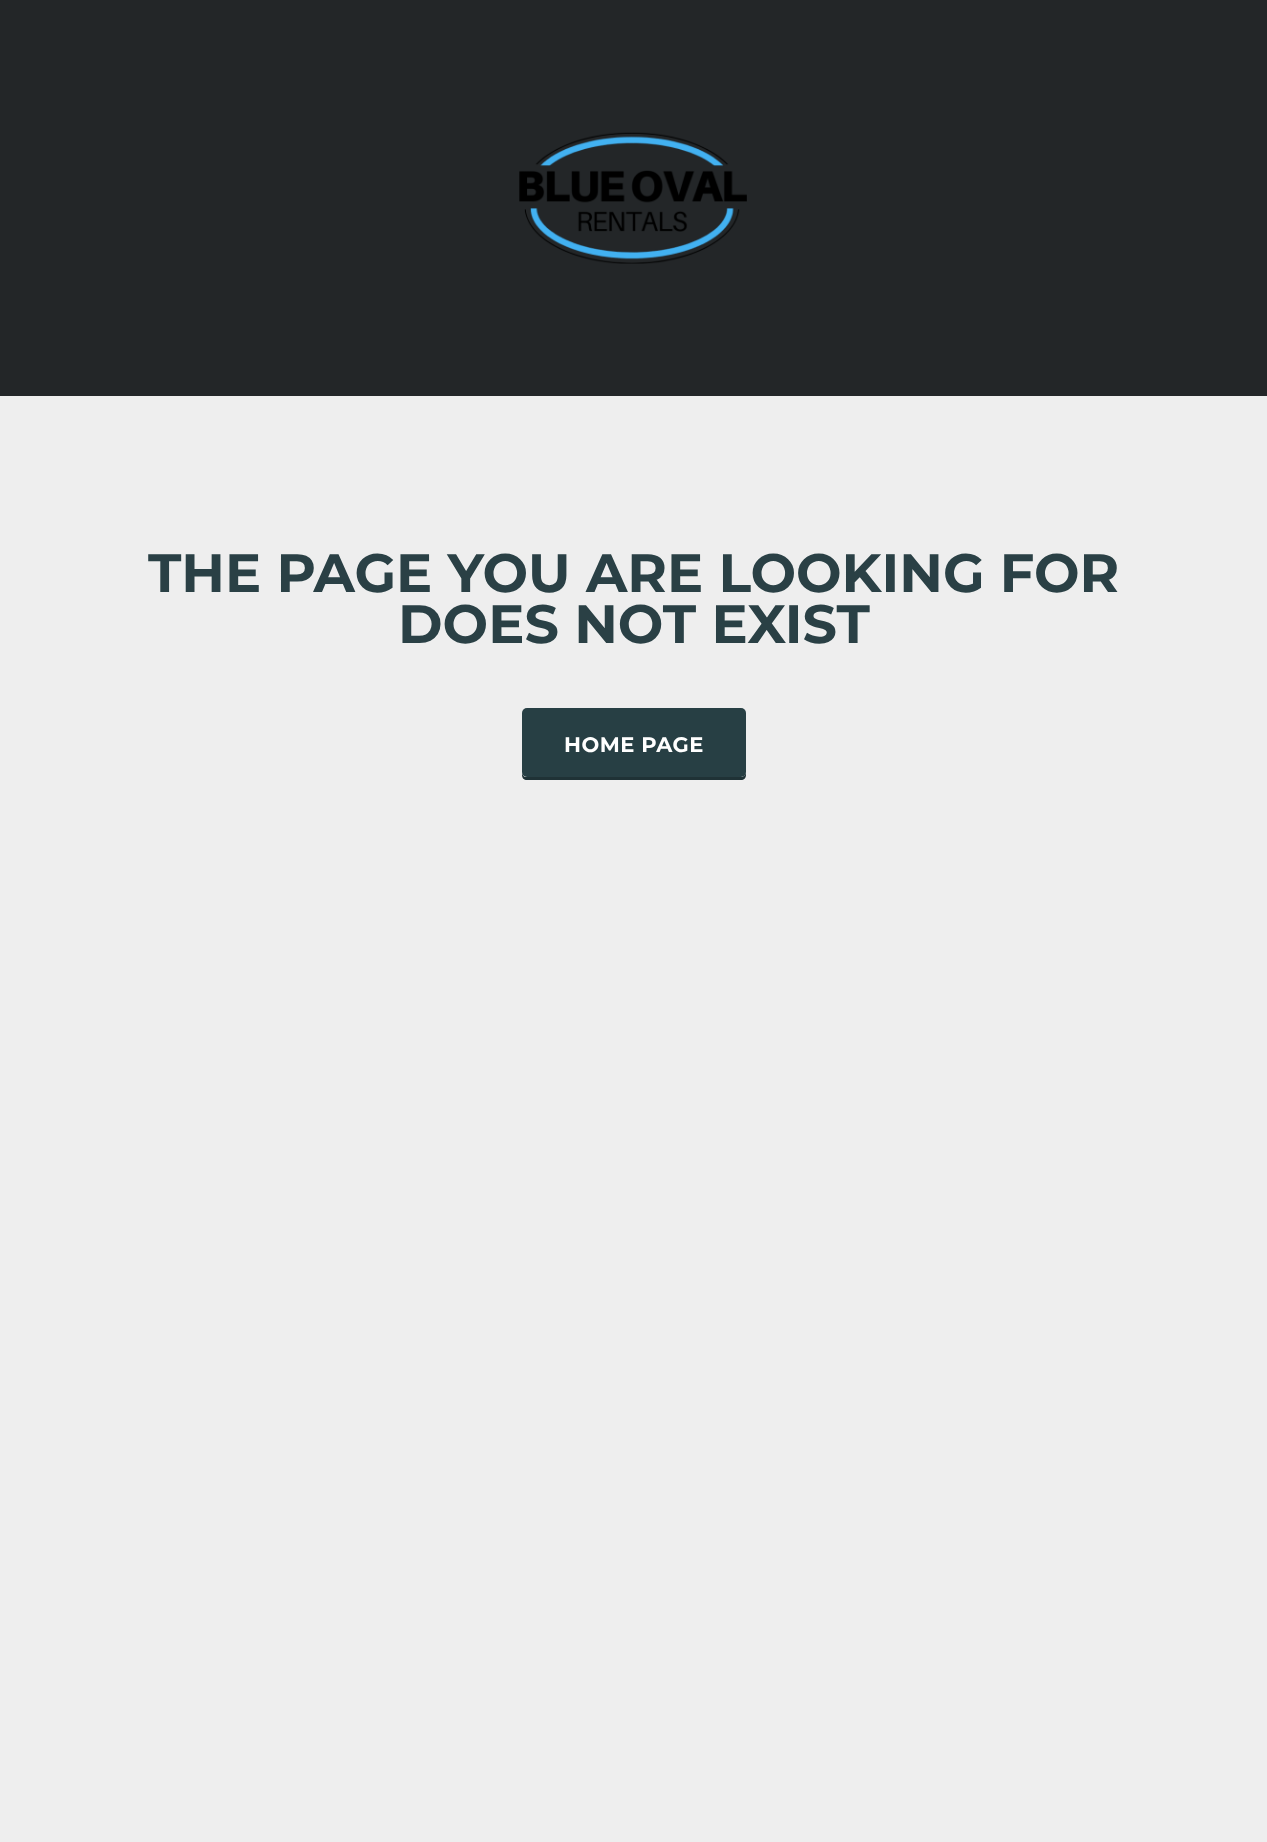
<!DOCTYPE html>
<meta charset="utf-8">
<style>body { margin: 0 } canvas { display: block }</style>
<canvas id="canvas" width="1267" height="1842"></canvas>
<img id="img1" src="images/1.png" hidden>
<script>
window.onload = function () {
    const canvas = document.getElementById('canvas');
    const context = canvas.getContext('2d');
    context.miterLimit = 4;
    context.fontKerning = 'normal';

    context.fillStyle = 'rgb(238, 238, 238)';
    context.fillRect(0, 0, 1267, 1842);
    context.fillStyle = 'rgb(35, 38, 40)';
    context.fillRect(0, 0, 1267, 396);
    context.drawImage(document.getElementById('img1'), 519, 132, 228, 132);
    context.fillStyle = 'rgb(31, 50, 54)';
    context.beginPath();
    context.moveTo(522, 772);
    context.lineTo(522, 775);
    context.bezierCurveTo(522, 778, 524, 780, 527, 780);
    context.lineTo(741, 780);
    context.bezierCurveTo(744, 780, 746, 778, 746, 775);
    context.lineTo(746, 716);
    context.lineTo(746, 714);
    context.lineTo(746, 772);
    context.bezierCurveTo(746, 775, 743, 777, 741, 777);
    context.lineTo(526, 777);
    context.bezierCurveTo(524, 777, 522, 775, 522, 772);
    context.closePath();
    context.fill();
    context.fillStyle = 'rgb(39, 63, 68)';
    context.beginPath();
    context.roundRect(522, 708, 224, 69, 5);
    context.fill();
    context.font = 'bold 54px Montserrat';
    context.fillStyle = 'rgb(42, 64, 69)';
    context.fillText('THE PAGE YOU ARE LOOKING FOR', 148, 592);
    context.fillText('DOES NOT EXIST', 398, 643);
    context.letterSpacing = '0.5px';
    context.font = 'bold 21px Montserrat';
    context.fillStyle = 'rgb(255, 255, 255)';
    context.fillText('HOME PAGE', 564, 752);
};
</script>
